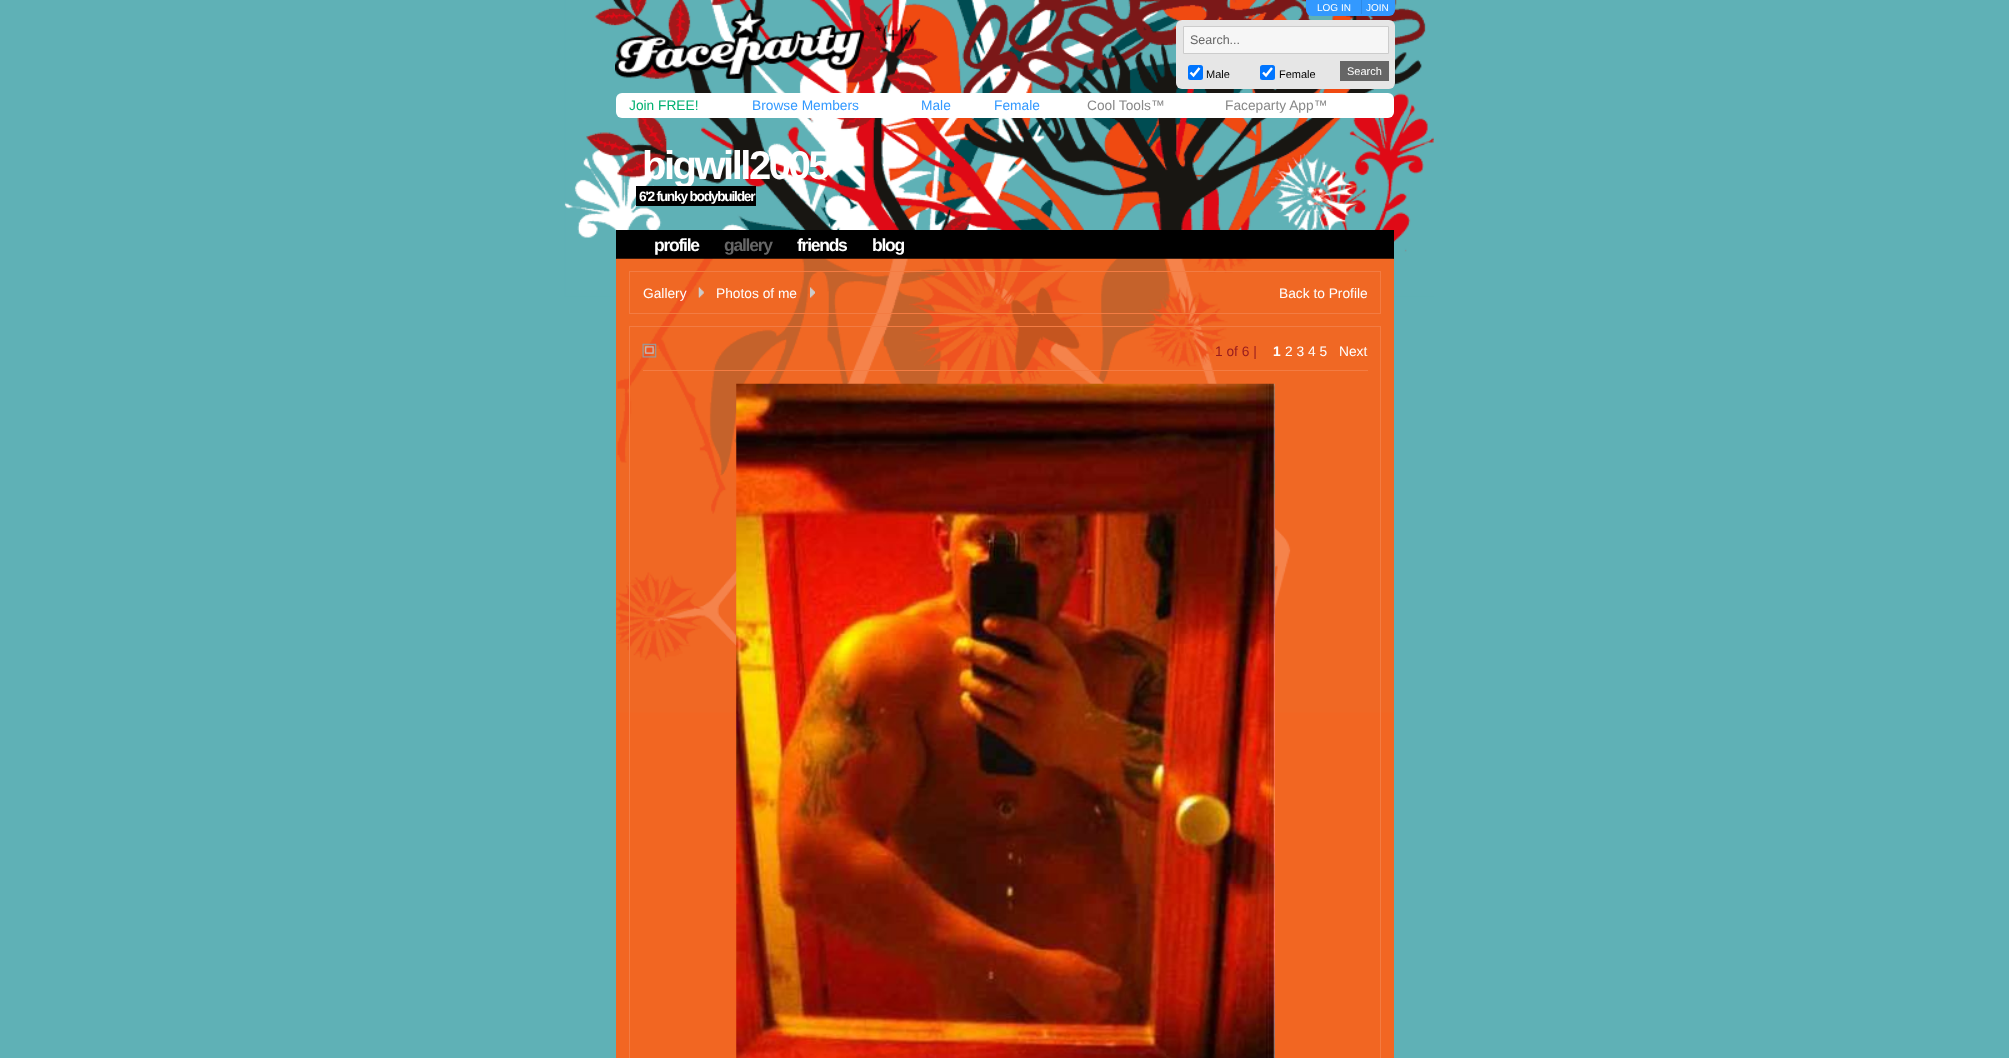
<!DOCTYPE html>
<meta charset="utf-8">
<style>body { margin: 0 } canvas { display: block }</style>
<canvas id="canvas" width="2009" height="1058"></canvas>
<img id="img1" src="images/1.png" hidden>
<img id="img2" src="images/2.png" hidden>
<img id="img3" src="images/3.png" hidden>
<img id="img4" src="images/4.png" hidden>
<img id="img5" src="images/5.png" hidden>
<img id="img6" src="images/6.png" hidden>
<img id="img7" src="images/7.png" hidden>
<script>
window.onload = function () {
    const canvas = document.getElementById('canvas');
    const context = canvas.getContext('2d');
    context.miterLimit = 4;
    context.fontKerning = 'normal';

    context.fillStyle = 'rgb(95, 177, 182)';
    context.fillRect(0, 0, 2009, 1058);
    context.drawImage(document.getElementById('img1'), 564, 0, 870, 297);
    context.drawImage(document.getElementById('img2'), 615, 10, 299, 69);
    context.fillStyle = 'rgb(51, 153, 255)';
    context.beginPath();
    context.roundRect(1306, 0, 89, 16, [0, 0, 6, 6]);
    context.fill();
    context.fillStyle = 'rgb(46, 137, 229)';
    context.fillRect(1361, 0, 1, 14);
    context.fillStyle = 'rgb(230, 230, 230)';
    context.beginPath();
    context.roundRect(1176, 20, 219, 69, 6);
    context.fill();
    context.fillStyle = 'rgb(246, 246, 246)';
    context.beginPath();
    context.rect(1183.5, 26.5, 205, 27);
    context.fill();
    context.strokeStyle = 'rgb(204, 204, 204)';
    context.stroke();
    context.fillStyle = 'rgb(0, 117, 255)';
    context.beginPath();
    context.roundRect(1188, 65, 15, 15, 2.5);
    context.fill();
    context.beginPath();
    context.moveTo(1190.5, 72.5);
    context.lineTo(1193.5, 75.5);
    context.lineTo(1199.5, 68);
    context.strokeStyle = 'rgb(255, 255, 255)';
    context.lineWidth = 2.4;
    context.stroke();
    context.beginPath();
    context.roundRect(1260, 65, 15, 15, 2.5);
    context.fill();
    context.beginPath();
    context.moveTo(1263, 72.5);
    context.lineTo(1266, 75.5);
    context.lineTo(1272, 68);
    context.stroke();
    context.fillStyle = 'rgb(102, 102, 102)';
    context.fillRect(1340, 61, 49, 20);
    context.fillStyle = 'rgb(255, 255, 255)';
    context.beginPath();
    context.roundRect(616, 93, 778, 25, 6);
    context.fill();
    context.fillStyle = 'rgb(0, 0, 0)';
    context.fillRect(616, 230, 778, 29);
    context.fillStyle = 'rgb(242, 102, 34)';
    context.fillRect(616, 259, 778, 799);
    context.drawImage(document.getElementById('img3'), 616, 258, 778, 455);
    context.strokeStyle = 'rgb(243, 124, 67)';
    context.lineWidth = 1;
    context.strokeRect(629.5, 271.5, 751, 42);
    context.drawImage(document.getElementById('img4'), 698, 287, 6, 11);
    context.drawImage(document.getElementById('img5'), 810, 287, 5, 11);
    context.strokeRect(629.5, 326.5, 751, 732);
    context.drawImage(document.getElementById('img6'), 642, 343, 15, 15);
    context.fillStyle = 'rgb(243, 124, 67)';
    context.fillRect(643, 370, 725, 1);
    context.drawImage(document.getElementById('img7'), 736, 383, 539, 675);
    context.font = '10px Liberation Sans';
    context.fillStyle = 'rgb(255, 255, 255)';
    context.fillText('LOG IN', 1317, 11);
    context.fillText('JOIN', 1366, 11);
    context.font = '12.5px Liberation Sans';
    context.fillStyle = 'rgb(102, 102, 102)';
    context.fillText('Search...', 1190, 44);
    context.font = '11px Liberation Sans';
    context.fillStyle = 'rgb(0, 0, 0)';
    context.fillText('Male', 1206, 78);
    context.fillText('Female', 1279, 78);
    context.fillStyle = 'rgb(255, 255, 255)';
    context.fillText('Search', 1347, 75);
    context.font = '13.75px Liberation Sans';
    context.fillStyle = 'rgb(0, 176, 112)';
    context.fillText('Join FREE!', 629, 110);
    context.fillStyle = 'rgb(51, 153, 255)';
    context.fillText('Browse Members', 752, 110);
    context.fillText('Male', 921, 110);
    context.fillText('Female', 994, 110);
    context.fillStyle = 'rgb(136, 136, 136)';
    context.fillText('Cool Tools™', 1087, 110);
    context.fillText('Faceparty App™', 1225, 110);
    context.letterSpacing = '-2.5px';
    context.font = 'bold 40px Liberation Sans';
    context.fillStyle = 'rgb(255, 255, 255)';
    context.fillText('bigwill2005', 642, 179);
    context.fillStyle = 'rgb(0, 0, 0)';
    context.fillRect(636, 186, 120, 20);
    context.letterSpacing = '-1.25px';
    context.font = 'bold 13.75px Liberation Sans';
    context.fillStyle = 'rgb(255, 255, 255)';
    context.fillText('6\'2 funky bodybuilder', 639, 201);
    context.font = 'bold 17.5px Liberation Sans';
    context.fillText('profile', 654, 251);
    context.fillStyle = 'rgb(102, 102, 102)';
    context.fillText('gallery', 724, 251);
    context.fillStyle = 'rgb(255, 255, 255)';
    context.fillText('friends', 797, 251);
    context.fillText('blog', 872, 251);
    context.letterSpacing = '0px';
    context.font = '13.75px Liberation Sans';
    context.fillText('Gallery', 643, 298);
    context.fillText('Photos of me', 716, 298);
    context.fillText('Back to Profile', 1279, 298);
    context.fillStyle = 'rgb(151, 27, 30)';
    context.fillText('1 of 6 |', 1215, 356);
    context.font = 'bold 13.75px Liberation Sans';
    context.fillStyle = 'rgb(255, 255, 255)';
    context.fillText('1', 1273, 356);
    context.font = '13.75px Liberation Sans';
    context.fillText('2 3 4 5', 1285, 356);
    context.fillText('Next', 1339, 356);
};
</script>
